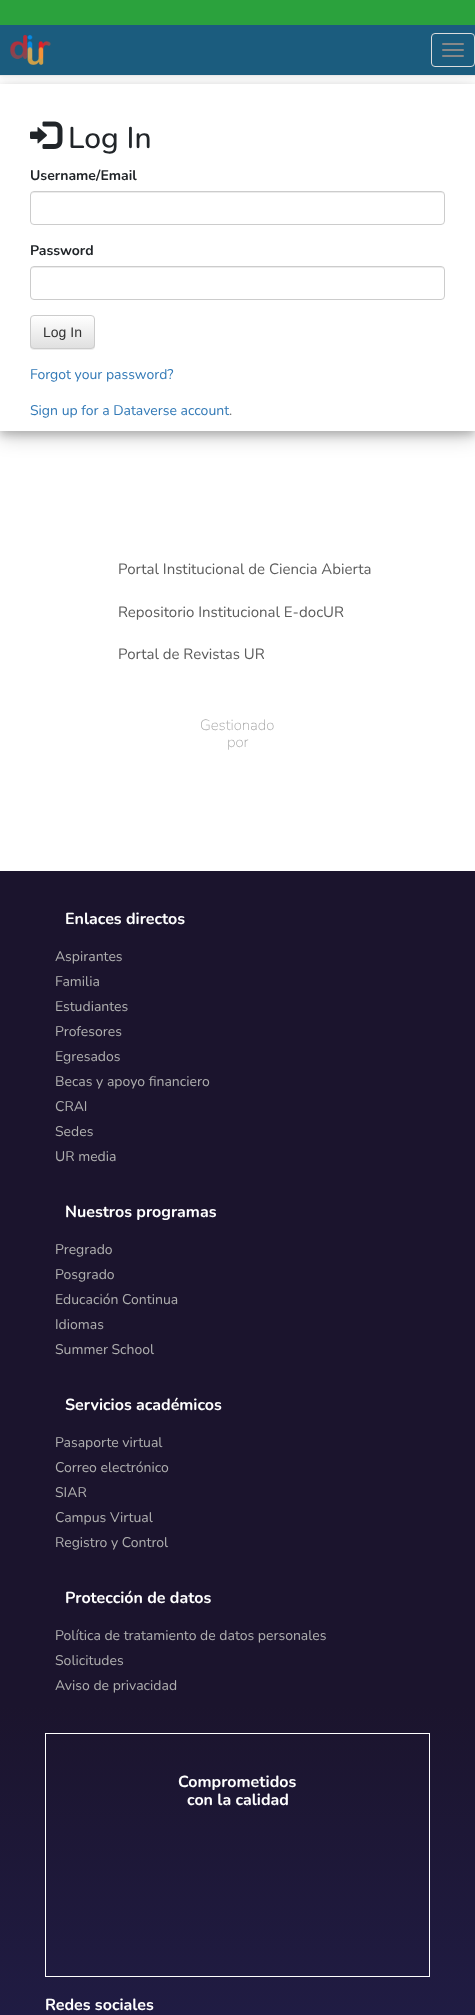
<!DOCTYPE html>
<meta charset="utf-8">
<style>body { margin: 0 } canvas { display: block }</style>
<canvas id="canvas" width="475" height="2015"></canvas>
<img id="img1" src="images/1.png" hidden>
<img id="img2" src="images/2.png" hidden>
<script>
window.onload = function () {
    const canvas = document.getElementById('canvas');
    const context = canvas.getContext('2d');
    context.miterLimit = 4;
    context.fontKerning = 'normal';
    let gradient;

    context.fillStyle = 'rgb(255, 255, 255)';
    context.fillRect(0, 0, 475, 2015);
    context.fillStyle = 'rgba(0, 0, 0, 0.07)';
    context.filter = 'blur(2.5px)';
    context.beginPath();
    context.rect(0, 1, 475, 76);
    context.fill();
    context.filter = 'none';
    context.save();
    context.beginPath();
    context.moveTo(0, 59);
    context.lineTo(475, 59);
    context.lineTo(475, 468);
    context.lineTo(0, 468);
    context.closePath();
    context.moveTo(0, 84);
    context.lineTo(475, 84);
    context.lineTo(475, 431);
    context.lineTo(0, 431);
    context.closePath();
    context.clip('evenodd');
    context.fillStyle = 'rgba(0, 0, 0, 0.19)';
    context.filter = 'blur(10px)';
    context.beginPath();
    context.rect(0, 90, 475, 347);
    context.fill();
    context.filter = 'none';
    context.restore();
    context.fillStyle = 'rgb(27, 92, 126)';
    context.fillRect(0, 25, 475, 50);
    context.save();
    context.beginPath();
    context.moveTo(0, 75);
    context.lineTo(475, 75);
    context.lineTo(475, 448);
    context.lineTo(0, 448);
    context.closePath();
    context.moveTo(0, 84);
    context.lineTo(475, 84);
    context.lineTo(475, 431);
    context.lineTo(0, 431);
    context.closePath();
    context.clip('evenodd');
    context.fillStyle = 'rgba(0, 0, 0, 0.2)';
    context.filter = 'blur(4px)';
    context.beginPath();
    context.rect(0, 88, 475, 347);
    context.fill();
    context.filter = 'none';
    context.restore();
    context.fillStyle = 'rgb(231, 231, 231)';
    context.fillRect(0, 75, 475, 1);
    context.fillStyle = 'rgb(43, 162, 61)';
    context.fillRect(0, 0, 475, 25);
    context.drawImage(document.getElementById('img1'), 10, 34, 41, 31);
    context.beginPath();
    context.roundRect(431.5, 33.5, 43, 33, 3.5);
    context.strokeStyle = 'rgb(221, 221, 221)';
    context.stroke();
    context.fillStyle = 'rgb(136, 136, 136)';
    context.beginPath();
    context.roundRect(442, 43, 22, 2, 1);
    context.fill();
    context.beginPath();
    context.roundRect(442, 49, 22, 2, 1);
    context.fill();
    context.beginPath();
    context.roundRect(442, 55, 22, 2, 1);
    context.fill();
    context.drawImage(document.getElementById('img2'), 30, 121, 33, 28);
    context.fillStyle = 'rgb(236, 236, 236)';
    context.beginPath();
    context.moveTo(34, 193);
    context.lineTo(441, 193);
    context.bezierCurveTo(443, 193, 444, 194, 444, 196);
    context.bezierCurveTo(444, 194, 443, 192, 441, 192);
    context.lineTo(34, 192);
    context.bezierCurveTo(32, 192, 31, 194, 31, 196);
    context.bezierCurveTo(31, 194, 32, 193, 34, 193);
    context.closePath();
    context.fill();
    context.beginPath();
    context.roundRect(30.5, 191.5, 414, 33, 3.5);
    context.strokeStyle = 'rgb(204, 204, 204)';
    context.stroke();
    context.beginPath();
    context.moveTo(34, 268);
    context.lineTo(441, 268);
    context.bezierCurveTo(443, 268, 444, 269, 444, 271);
    context.bezierCurveTo(444, 269, 443, 267, 441, 267);
    context.lineTo(34, 267);
    context.bezierCurveTo(32, 267, 31, 269, 31, 271);
    context.bezierCurveTo(31, 269, 32, 268, 34, 268);
    context.closePath();
    context.fill();
    context.beginPath();
    context.roundRect(30.5, 266.5, 414, 33, 3.5);
    context.stroke();
    context.fillStyle = 'rgba(0, 0, 0, 0.07)';
    context.filter = 'blur(0.5px)';
    context.beginPath();
    context.roundRect(30, 316, 65, 34, 4);
    context.fill();
    context.filter = 'none';
    context.save();
    context.beginPath();
    context.roundRect(30, 315, 65, 34, 4);
    context.clip();
    gradient = context.createLinearGradient(63, 316, 63, 348);
    gradient.addColorStop(0, 'rgb(255, 255, 255)');
    gradient.addColorStop(1, 'rgb(224, 224, 224)');
    context.fillStyle = gradient;
    context.fillRect(30, 316, 65, 32);
    context.restore();
    context.beginPath();
    context.roundRect(30.5, 315.5, 64, 33, 3.5);
    context.stroke();
    gradient = context.createLinearGradient(237, 871, 238, 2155);
    gradient.addColorStop(0.65, 'rgb(27, 20, 45)');
    gradient.addColorStop(1, 'rgb(34, 31, 77)');
    context.fillStyle = gradient;
    context.fillRect(0, 871, 475, 1144);
    context.strokeStyle = 'rgb(255, 255, 255)';
    context.strokeRect(45.5, 1733.5, 384, 243);
    context.font = '500 30px Nunito';
    context.fillStyle = 'rgb(33, 37, 41)';
    context.fillText('Log In', 68, 148);
    context.font = 'bold 14px Nunito';
    context.fillText('Username/Email', 30, 180);
    context.fillText('Password', 30, 255);
    context.font = '14px Liberation Sans';
    context.fillStyle = 'rgb(51, 51, 51)';
    context.fillText('Log In', 43, 337);
    context.font = '14px Nunito';
    context.fillStyle = 'rgb(51, 122, 183)';
    context.fillText('Forgot your password?', 30, 379);
    context.fillText('Sign up for a Dataverse account', 30, 415);
    context.fillStyle = 'rgb(115, 115, 115)';
    context.fillText('.', 229, 415);
    context.font = '15px Nunito';
    context.fillStyle = 'rgb(92, 92, 92)';
    context.fillText('Portal Institucional de Ciencia Abierta', 118, 574);
    context.fillText('Repositorio Institucional E-docUR', 118, 617);
    context.fillText('Portal de Revistas UR', 118, 659);
    context.font = '200 15px Nunito';
    context.fillStyle = 'rgb(166, 166, 166)';
    context.fillText('Gestionado', 200, 730);
    context.fillText('por', 227, 747);
    context.font = 'bold 16px Nunito';
    context.fillStyle = 'rgb(255, 255, 255)';
    context.fillText('Enlaces directos', 65, 924);
    context.font = '14px Nunito';
    context.fillStyle = 'rgb(175, 175, 175)';
    context.fillText('Aspirantes', 55, 961);
    context.fillText('Familia', 55, 986);
    context.fillText('Estudiantes', 55, 1011);
    context.fillText('Profesores', 55, 1036);
    context.fillText('Egresados', 55, 1061);
    context.fillText('Becas y apoyo financiero', 55, 1086);
    context.fillText('CRAI', 55, 1111);
    context.fillText('Sedes', 55, 1136);
    context.fillText('UR media', 55, 1161);
    context.font = 'bold 16px Nunito';
    context.fillStyle = 'rgb(255, 255, 255)';
    context.fillText('Nuestros programas', 65, 1217);
    context.font = '14px Nunito';
    context.fillStyle = 'rgb(175, 175, 175)';
    context.fillText('Pregrado', 55, 1254);
    context.fillText('Posgrado', 55, 1279);
    context.fillText('Educación Continua', 55, 1304);
    context.fillText('Idiomas', 55, 1329);
    context.fillText('Summer School', 55, 1354);
    context.font = 'bold 16px Nunito';
    context.fillStyle = 'rgb(255, 255, 255)';
    context.fillText('Servicios académicos', 65, 1410);
    context.font = '14px Nunito';
    context.fillStyle = 'rgb(175, 175, 175)';
    context.fillText('Pasaporte virtual', 55, 1447);
    context.fillText('Correo electrónico', 55, 1472);
    context.fillText('SIAR', 55, 1497);
    context.fillText('Campus Virtual', 55, 1522);
    context.fillText('Registro y Control', 55, 1547);
    context.font = 'bold 16px Nunito';
    context.fillStyle = 'rgb(255, 255, 255)';
    context.fillText('Protección de datos', 65, 1603);
    context.font = '14px Nunito';
    context.fillStyle = 'rgb(175, 175, 175)';
    context.fillText('Política de tratamiento de datos personales', 55, 1640);
    context.fillText('Solicitudes', 55, 1665);
    context.fillText('Aviso de privacidad', 55, 1690);
    context.font = 'bold 16px Nunito';
    context.fillStyle = 'rgb(255, 255, 255)';
    context.fillText('Comprometidos', 178, 1787);
    context.fillText('con la calidad', 187, 1805);
    context.fillText('Redes sociales', 45, 2010);
};
</script>
